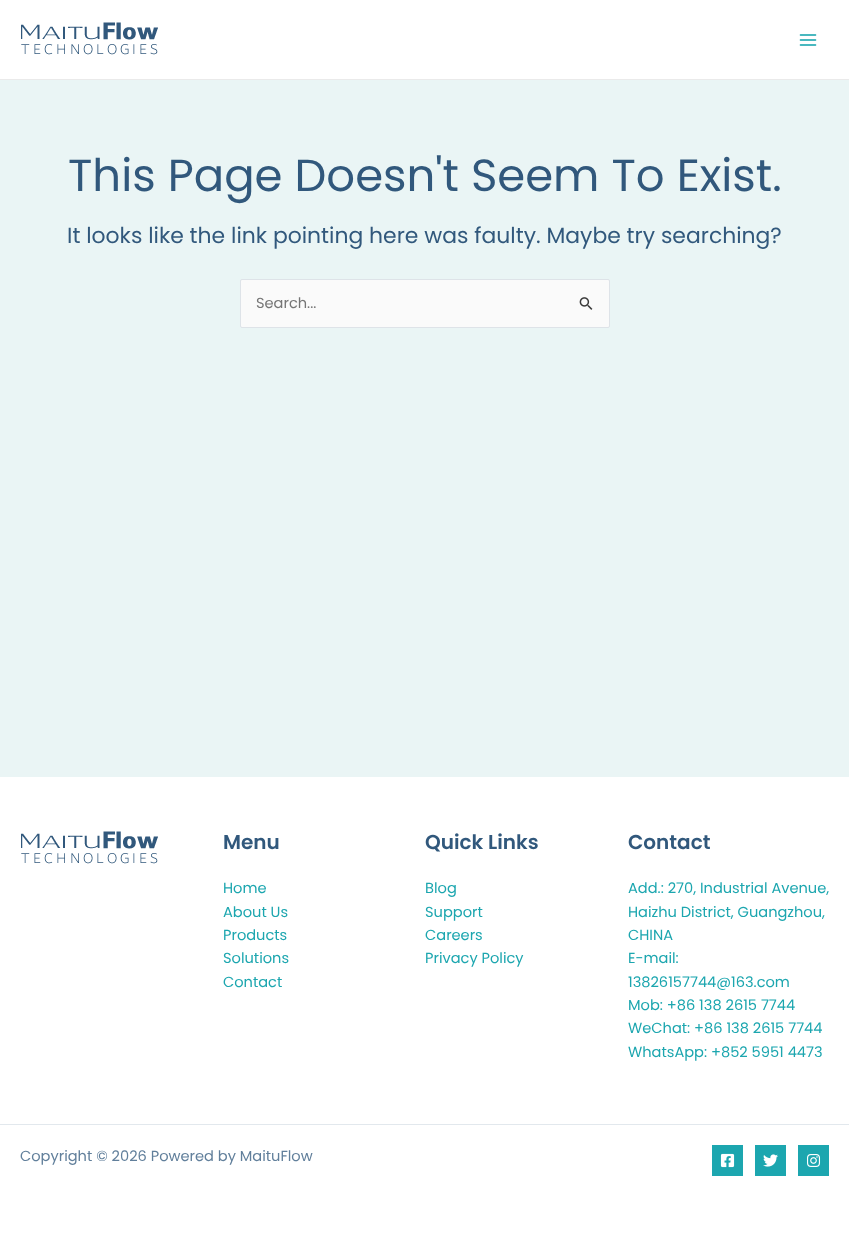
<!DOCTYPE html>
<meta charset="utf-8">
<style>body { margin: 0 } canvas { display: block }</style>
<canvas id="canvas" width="849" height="1245"></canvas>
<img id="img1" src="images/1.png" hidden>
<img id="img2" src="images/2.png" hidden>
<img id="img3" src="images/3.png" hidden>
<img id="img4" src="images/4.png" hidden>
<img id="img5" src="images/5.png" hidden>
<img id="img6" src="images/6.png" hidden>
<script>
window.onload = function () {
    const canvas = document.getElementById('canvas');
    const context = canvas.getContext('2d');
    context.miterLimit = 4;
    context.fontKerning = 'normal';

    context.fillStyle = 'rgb(234, 245, 245)';
    context.fillRect(0, 0, 849, 1245);
    context.fillStyle = 'rgb(255, 255, 255)';
    context.fillRect(0, 0, 849, 79);
    context.fillStyle = 'rgb(234, 234, 234)';
    context.fillRect(0, 79, 849, 1);
    context.drawImage(document.getElementById('img1'), 21, 22, 137, 33);
    context.drawImage(document.getElementById('img2'), 799, 34, 18, 12);
    context.fillStyle = 'rgb(250, 250, 250)';
    context.beginPath();
    context.roundRect(240.5, 279.5, 369, 48, 1.5);
    context.fill();
    context.strokeStyle = 'rgb(222, 227, 232)';
    context.stroke();
    context.drawImage(document.getElementById('img3'), 579, 297, 14, 13);
    context.fillStyle = 'rgb(255, 255, 255)';
    context.fillRect(0, 777, 849, 347);
    context.drawImage(document.getElementById('img1'), 21, 831, 137, 33);
    context.fillRect(0, 1125, 849, 120);
    context.fillStyle = 'rgb(226, 232, 237)';
    context.fillRect(0, 1124, 849, 1);
    context.fillStyle = 'rgb(28, 166, 175)';
    context.fillRect(712, 1145, 31, 31);
    context.drawImage(document.getElementById('img4'), 720, 1153, 15, 15);
    context.fillRect(755, 1145, 31, 31);
    context.drawImage(document.getElementById('img5'), 763, 1154, 15, 13);
    context.fillRect(798, 1145, 31, 31);
    context.drawImage(document.getElementById('img6'), 807, 1154, 14, 13);
    context.font = '45px Poppins';
    context.fillStyle = 'rgb(49, 88, 124)';
    context.fillText('This Page Doesn\'t Seem To Exist.', 68, 191);
    context.font = '21.9px Poppins';
    context.fillText('It looks like the link pointing here was faulty. Maybe try searching?', 67, 243);
    context.font = '14.6px Poppins';
    context.fillStyle = 'rgb(117, 117, 117)';
    context.fillText('Search...', 256, 308);
    context.font = '600 20px Poppins';
    context.fillStyle = 'rgb(49, 88, 124)';
    context.fillText('Menu', 223, 849);
    context.font = '14.6px Poppins';
    context.fillStyle = 'rgb(28, 166, 175)';
    context.fillText('Home', 223, 893);
    context.fillText('About Us', 223, 917);
    context.fillText('Products', 223, 940);
    context.fillText('Solutions', 223, 963);
    context.fillText('Contact', 223, 987);
    context.font = '600 20px Poppins';
    context.fillStyle = 'rgb(49, 88, 124)';
    context.fillText('Quick Links', 425, 849);
    context.font = '14.6px Poppins';
    context.fillStyle = 'rgb(28, 166, 175)';
    context.fillText('Blog', 425, 893);
    context.fillText('Support', 425, 917);
    context.fillText('Careers', 425, 940);
    context.fillText('Privacy Policy', 425, 963);
    context.font = '600 20px Poppins';
    context.fillStyle = 'rgb(49, 88, 124)';
    context.fillText('Contact', 628, 849);
    context.font = '14.6px Poppins';
    context.fillStyle = 'rgb(28, 166, 175)';
    context.fillText('Add.: 270, Industrial Avenue,', 628, 893);
    context.fillText('Haizhu District, Guangzhou,', 628, 917);
    context.fillText('CHINA', 628, 940);
    context.fillText('E-mail:', 628, 963);
    context.fillText('13826157744@163.com', 628, 987);
    context.fillText('Mob: +86 138 2615 7744', 628, 1010);
    context.fillText('WeChat: +86 138 2615 7744', 628, 1033);
    context.fillText('WhatsApp: +852 5951 4473', 628, 1057);
    context.fillStyle = 'rgb(97, 127, 155)';
    context.fillText('Copyright © 2026 Powered by MaituFlow', 20, 1161);
};
</script>
